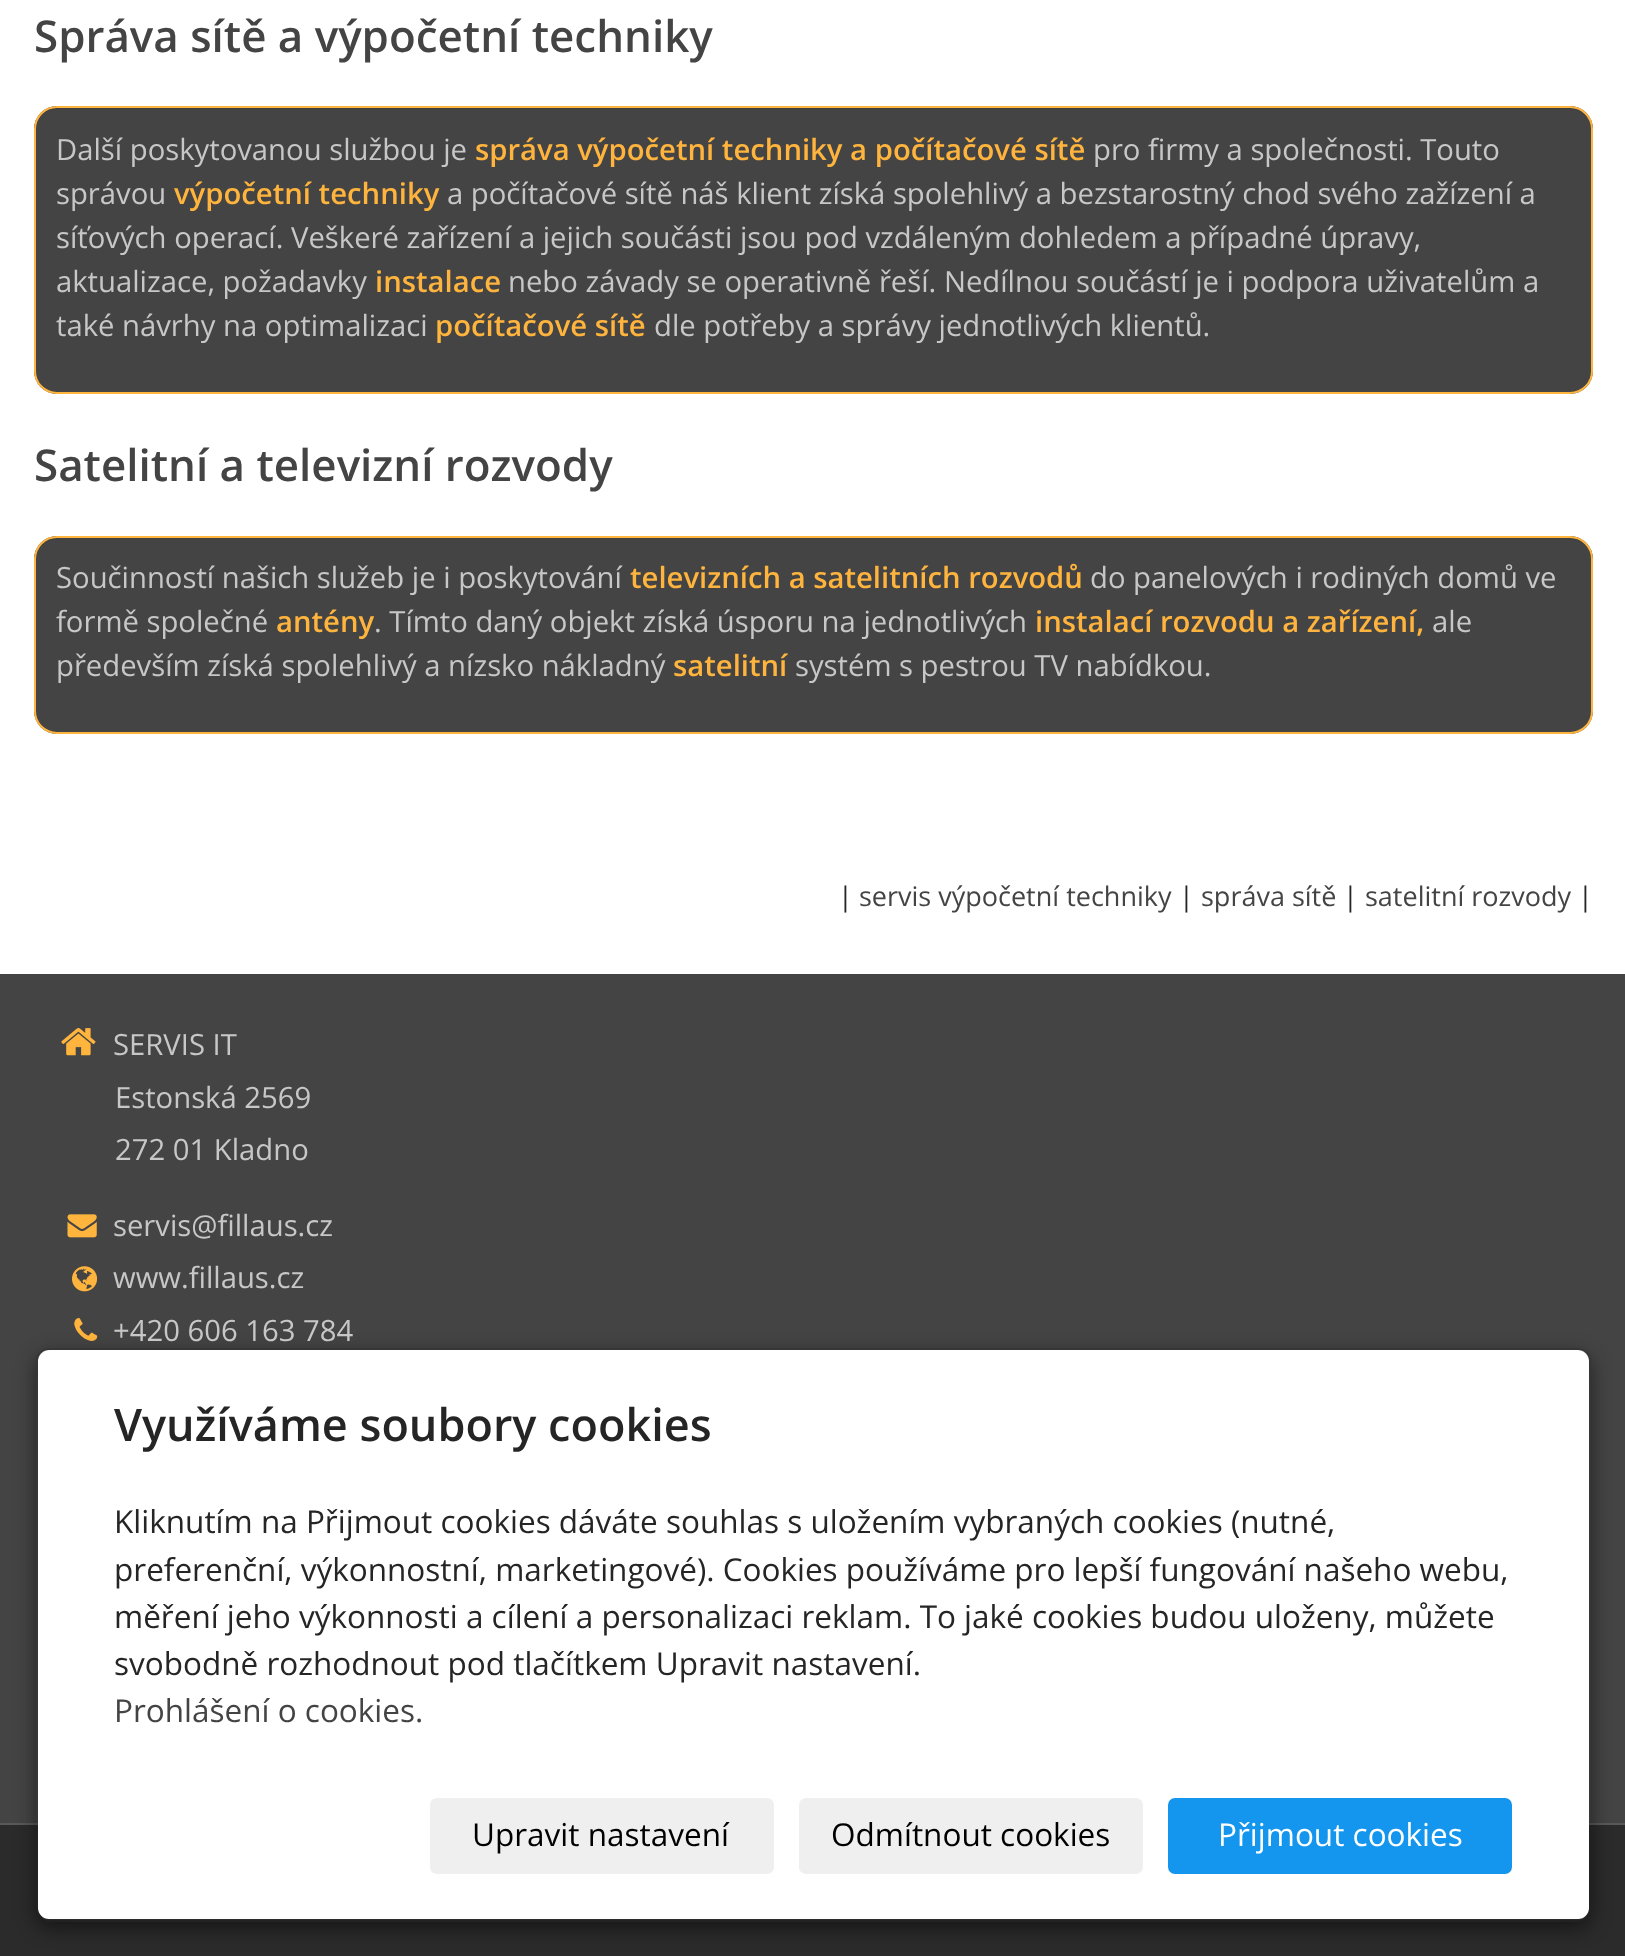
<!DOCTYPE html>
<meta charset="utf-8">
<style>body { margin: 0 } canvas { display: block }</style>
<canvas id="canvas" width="1625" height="1956"></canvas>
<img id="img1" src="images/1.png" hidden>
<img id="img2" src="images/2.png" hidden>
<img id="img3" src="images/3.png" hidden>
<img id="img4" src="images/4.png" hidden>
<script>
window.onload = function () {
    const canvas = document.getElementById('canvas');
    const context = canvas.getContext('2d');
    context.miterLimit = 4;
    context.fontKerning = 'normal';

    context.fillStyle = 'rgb(255, 255, 255)';
    context.fillRect(0, 0, 1625, 1956);
    context.fillStyle = 'rgb(68, 68, 68)';
    context.beginPath();
    context.roundRect(34, 106, 1559, 288, 23);
    context.fill();
    context.fillStyle = 'rgb(65, 65, 65)';
    context.beginPath();
    context.moveTo(56, 110);
    context.lineTo(1570, 110);
    context.bezierCurveTo(1582, 110, 1591, 119, 1591, 130);
    context.bezierCurveTo(1591, 118, 1584, 108, 1571, 108);
    context.lineTo(56, 108);
    context.bezierCurveTo(43, 108, 36, 118, 36, 130);
    context.bezierCurveTo(36, 119, 45, 110, 56, 110);
    context.closePath();
    context.fill();
    context.beginPath();
    context.roundRect(35, 107, 1557, 286, 22);
    context.strokeStyle = 'rgb(255, 180, 61)';
    context.lineWidth = 2;
    context.stroke();
    context.fillStyle = 'rgb(68, 68, 68)';
    context.beginPath();
    context.roundRect(34, 536, 1559, 198, 23);
    context.fill();
    context.fillStyle = 'rgb(65, 65, 65)';
    context.beginPath();
    context.moveTo(56, 540);
    context.lineTo(1570, 540);
    context.bezierCurveTo(1582, 540, 1591, 549, 1591, 560);
    context.bezierCurveTo(1591, 548, 1584, 538, 1571, 538);
    context.lineTo(56, 538);
    context.bezierCurveTo(43, 538, 36, 548, 36, 560);
    context.bezierCurveTo(36, 549, 45, 540, 56, 540);
    context.closePath();
    context.fill();
    context.beginPath();
    context.roundRect(35, 537, 1557, 196, 22);
    context.stroke();
    context.fillStyle = 'rgb(68, 68, 68)';
    context.fillRect(0, 974, 1625, 849);
    context.drawImage(document.getElementById('img1'), 61, 1028, 35, 28);
    context.drawImage(document.getElementById('img2'), 67, 1214, 30, 24);
    context.drawImage(document.getElementById('img3'), 72, 1266, 26, 26);
    context.drawImage(document.getElementById('img4'), 74, 1318, 24, 23);
    context.fillStyle = 'rgb(43, 43, 43)';
    context.fillRect(0, 1825, 1625, 131);
    context.fillStyle = 'rgb(89, 89, 89)';
    context.fillRect(0, 1823, 1625, 2);
    context.save();
    context.beginPath();
    context.moveTo(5, 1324);
    context.lineTo(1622, 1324);
    context.lineTo(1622, 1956);
    context.lineTo(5, 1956);
    context.closePath();
    context.moveTo(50, 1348);
    context.lineTo(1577, 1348);
    context.bezierCurveTo(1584.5, 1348, 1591, 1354.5, 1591, 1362);
    context.lineTo(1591, 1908);
    context.bezierCurveTo(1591, 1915.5, 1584.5, 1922, 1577, 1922);
    context.lineTo(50, 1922);
    context.bezierCurveTo(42.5, 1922, 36, 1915.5, 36, 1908);
    context.lineTo(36, 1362);
    context.bezierCurveTo(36, 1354.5, 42.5, 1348, 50, 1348);
    context.closePath();
    context.clip('evenodd');
    context.fillStyle = 'rgba(0, 0, 0, 0.5)';
    context.filter = 'blur(10px)';
    context.beginPath();
    context.roundRect(36, 1355, 1555, 573, 14);
    context.fill();
    context.filter = 'none';
    context.restore();
    context.fillStyle = 'rgb(255, 255, 255)';
    context.beginPath();
    context.roundRect(38, 1350, 1551, 569, 11);
    context.fill();
    context.beginPath();
    context.roundRect(37, 1349, 1553, 572, 13);
    context.strokeStyle = 'rgba(0, 0, 0, 0.2)';
    context.stroke();
    context.fillStyle = 'rgb(239, 239, 239)';
    context.beginPath();
    context.roundRect(430, 1798, 344, 76, 7);
    context.fill();
    context.beginPath();
    context.roundRect(799, 1798, 344, 76, 7);
    context.fill();
    context.fillStyle = 'rgb(20, 150, 238)';
    context.beginPath();
    context.roundRect(1169, 1799, 342, 74, 6);
    context.fill();
    context.strokeStyle = 'rgb(20, 150, 238)';
    context.stroke();
    context.font = '600 43.9px Open Sans';
    context.fillStyle = 'rgb(68, 68, 68)';
    context.fillText('Správa sítě a výpočetní techniky', 34, 52);
    context.font = '29.25px Open Sans';
    context.fillStyle = 'rgb(199, 199, 199)';
    context.fillText('Další poskytovanou službou je', 56, 160);
    context.font = '600 29.25px Open Sans';
    context.fillStyle = 'rgb(255, 180, 61)';
    context.fillText('správa výpočetní techniky a počítačové sítě', 475, 160);
    context.font = '29.25px Open Sans';
    context.fillStyle = 'rgb(199, 199, 199)';
    context.fillText('pro firmy a společnosti. Touto', 1093, 160);
    context.fillText('správou', 56, 204);
    context.font = '600 29.25px Open Sans';
    context.fillStyle = 'rgb(255, 180, 61)';
    context.fillText('výpočetní techniky', 174, 204);
    context.font = '29.25px Open Sans';
    context.fillStyle = 'rgb(199, 199, 199)';
    context.fillText('a počítačové sítě náš klient získá spolehlivý a bezstarostný chod svého zažízení a', 447, 204);
    context.fillText('síťových operací. Veškeré zařízení a jejich součásti jsou pod vzdáleným dohledem a případné úpravy,', 56, 248);
    context.fillText('aktualizace, požadavky', 56, 292);
    context.font = '600 29.25px Open Sans';
    context.fillStyle = 'rgb(255, 180, 61)';
    context.fillText('instalace', 375, 292);
    context.font = '29.25px Open Sans';
    context.fillStyle = 'rgb(199, 199, 199)';
    context.fillText('nebo závady se operativně řeší. Nedílnou součástí je i podpora uživatelům a', 508, 292);
    context.fillText('také návrhy na optimalizaci', 56, 336);
    context.font = '600 29.25px Open Sans';
    context.fillStyle = 'rgb(255, 180, 61)';
    context.fillText('počítačové sítě', 435, 336);
    context.font = '29.25px Open Sans';
    context.fillStyle = 'rgb(199, 199, 199)';
    context.fillText('dle potřeby a správy jednotlivých klientů.', 654, 336);
    context.font = '600 43.9px Open Sans';
    context.fillStyle = 'rgb(68, 68, 68)';
    context.fillText('Satelitní a televizní rozvody', 34, 481);
    context.font = '29.25px Open Sans';
    context.fillStyle = 'rgb(199, 199, 199)';
    context.fillText('Součinností našich služeb je i poskytování', 56, 588);
    context.font = '600 29.25px Open Sans';
    context.fillStyle = 'rgb(255, 180, 61)';
    context.fillText('televizních a satelitních rozvodů', 630, 588);
    context.font = '29.25px Open Sans';
    context.fillStyle = 'rgb(199, 199, 199)';
    context.fillText('do panelových i rodiných domů ve', 1090, 588);
    context.fillText('formě společné', 56, 632);
    context.font = '600 29.25px Open Sans';
    context.fillStyle = 'rgb(255, 180, 61)';
    context.fillText('antény', 276, 632);
    context.font = '29.25px Open Sans';
    context.fillStyle = 'rgb(199, 199, 199)';
    context.fillText('. Tímto daný objekt získá úsporu na jednotlivých', 374, 632);
    context.font = '600 29.25px Open Sans';
    context.fillStyle = 'rgb(255, 180, 61)';
    context.fillText('instalací rozvodu a zařízení,', 1035, 632);
    context.font = '29.25px Open Sans';
    context.fillStyle = 'rgb(199, 199, 199)';
    context.fillText('ale', 1432, 632);
    context.fillText('především získá spolehlivý a nízsko nákladný', 56, 676);
    context.font = '600 29.25px Open Sans';
    context.fillStyle = 'rgb(255, 180, 61)';
    context.fillText('satelitní', 673, 676);
    context.font = '29.25px Open Sans';
    context.fillStyle = 'rgb(199, 199, 199)';
    context.fillText('systém s pestrou TV nabídkou.', 795, 676);
    context.font = '27px Open Sans';
    context.fillStyle = 'rgb(37, 37, 37)';
    context.fillText('|', 838, 906);
    context.fillStyle = 'rgb(68, 68, 68)';
    context.fillText('servis výpočetní techniky', 859, 906);
    context.fillStyle = 'rgb(37, 37, 37)';
    context.fillText('|', 1179, 906);
    context.fillStyle = 'rgb(68, 68, 68)';
    context.fillText('správa sítě', 1201, 906);
    context.fillStyle = 'rgb(37, 37, 37)';
    context.fillText('|', 1343, 906);
    context.fillStyle = 'rgb(68, 68, 68)';
    context.fillText('satelitní rozvody', 1365, 906);
    context.fillStyle = 'rgb(37, 37, 37)';
    context.fillText('|', 1578, 906);
    context.font = '29.25px Open Sans';
    context.fillStyle = 'rgb(199, 199, 199)';
    context.fillText('SERVIS IT', 113, 1055);
    context.fillText('Estonská 2569', 115, 1108);
    context.fillText('272 01 Kladno', 115, 1160);
    context.fillText('servis@fillaus.cz', 113, 1236);
    context.fillText('www.fillaus.cz', 113, 1288);
    context.fillText('+420 606 163 784', 113, 1341);
    context.font = '600 45px Open Sans';
    context.fillStyle = 'rgb(37, 37, 37)';
    context.fillText('Využíváme soubory cookies', 114, 1441);
    context.font = '31.5px Open Sans';
    context.fillText('Kliknutím na Přijmout cookies dáváte souhlas s uložením vybraných cookies (nutné,', 114, 1533);
    context.fillText('preferenční, výkonnostní, marketingové). Cookies používáme pro lepší fungování našeho webu,', 114, 1581);
    context.fillText('měření jeho výkonnosti a cílení a personalizaci reklam. To jaké cookies budou uloženy, můžete', 114, 1628);
    context.fillText('svobodně rozhodnout pod tlačítkem Upravit nastavení.', 114, 1675);
    context.fillStyle = 'rgb(68, 68, 68)';
    context.fillText('Prohlášení o cookies.', 114, 1722);
    context.fillStyle = 'rgb(0, 0, 0)';
    context.fillText('Upravit nastavení', 472, 1846);
    context.fillText('Odmítnout cookies', 831, 1846);
    context.fillStyle = 'rgb(255, 255, 255)';
    context.fillText('Přijmout cookies', 1218, 1846);
};
</script>
